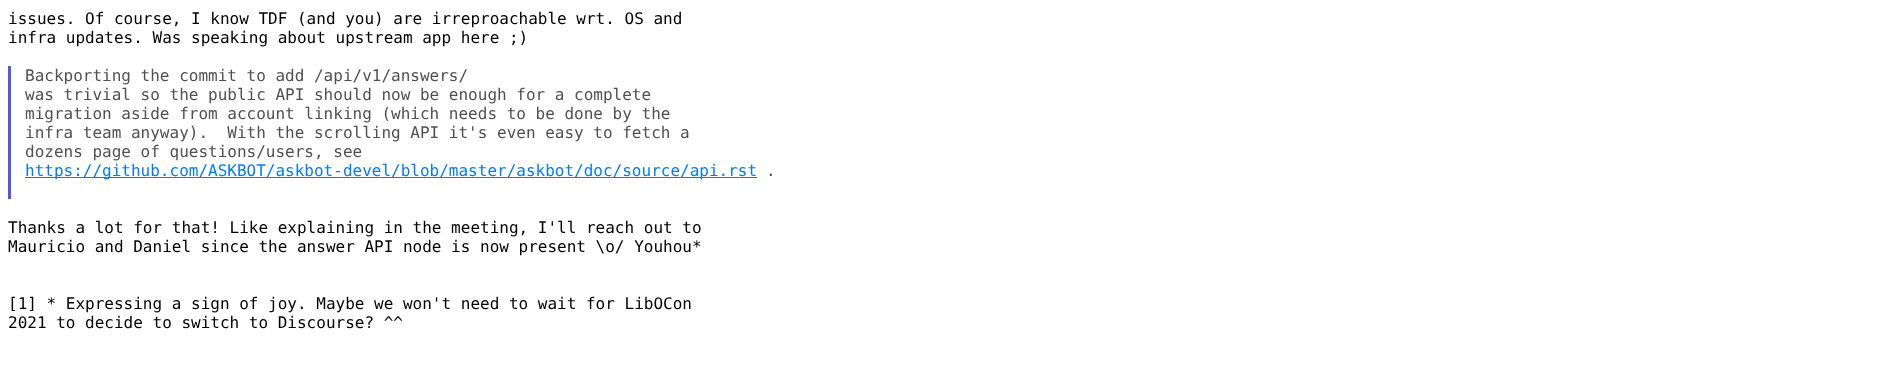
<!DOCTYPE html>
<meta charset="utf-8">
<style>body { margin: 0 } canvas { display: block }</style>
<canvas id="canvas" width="1881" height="379"></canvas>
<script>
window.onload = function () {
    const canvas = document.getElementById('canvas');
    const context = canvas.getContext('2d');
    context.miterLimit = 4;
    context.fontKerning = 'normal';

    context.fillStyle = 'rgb(255, 255, 255)';
    context.fillRect(0, 0, 1881, 379);
    context.fillStyle = 'rgb(85, 85, 238)';
    context.fillRect(8, 66, 3, 133);
    context.fillStyle = 'rgb(0, 123, 255)';
    context.fillRect(25, 177, 732, 1);
    context.font = '16px DejaVu Sans Mono';
    context.fillStyle = 'rgb(0, 0, 0)';
    context.fillText('issues. Of course, I know TDF (and you) are irreproachable wrt. OS and', 8, 24);
    context.fillText('infra updates. Was speaking about upstream app here ;)', 8, 43);
    context.fillStyle = 'rgb(80, 80, 80)';
    context.fillText('Backporting the commit to add /api/v1/answers/', 25, 81);
    context.fillText('was trivial so the public API should now be enough for a complete', 25, 100);
    context.fillText('migration aside from account linking (which needs to be done by the', 25, 119);
    context.fillText('infra team anyway).  With the scrolling API it\'s even easy to fetch a', 25, 138);
    context.fillText('dozens page of questions/users, see', 25, 157);
    context.fillStyle = 'rgb(0, 123, 255)';
    context.fillText('https://github.com/ASKBOT/askbot-devel/blob/master/askbot/doc/source/api.rst', 25, 176);
    context.fillStyle = 'rgb(80, 80, 80)';
    context.fillText('.', 766, 176);
    context.fillStyle = 'rgb(0, 0, 0)';
    context.fillText('Thanks a lot for that! Like explaining in the meeting, I\'ll reach out to', 8, 233);
    context.fillText('Mauricio and Daniel since the answer API node is now present \\o/ Youhou*', 8, 252);
    context.fillText('[1] * Expressing a sign of joy. Maybe we won\'t need to wait for LibOCon', 8, 309);
    context.fillText('2021 to decide to switch to Discourse? ^^', 8, 328);
};
</script>
